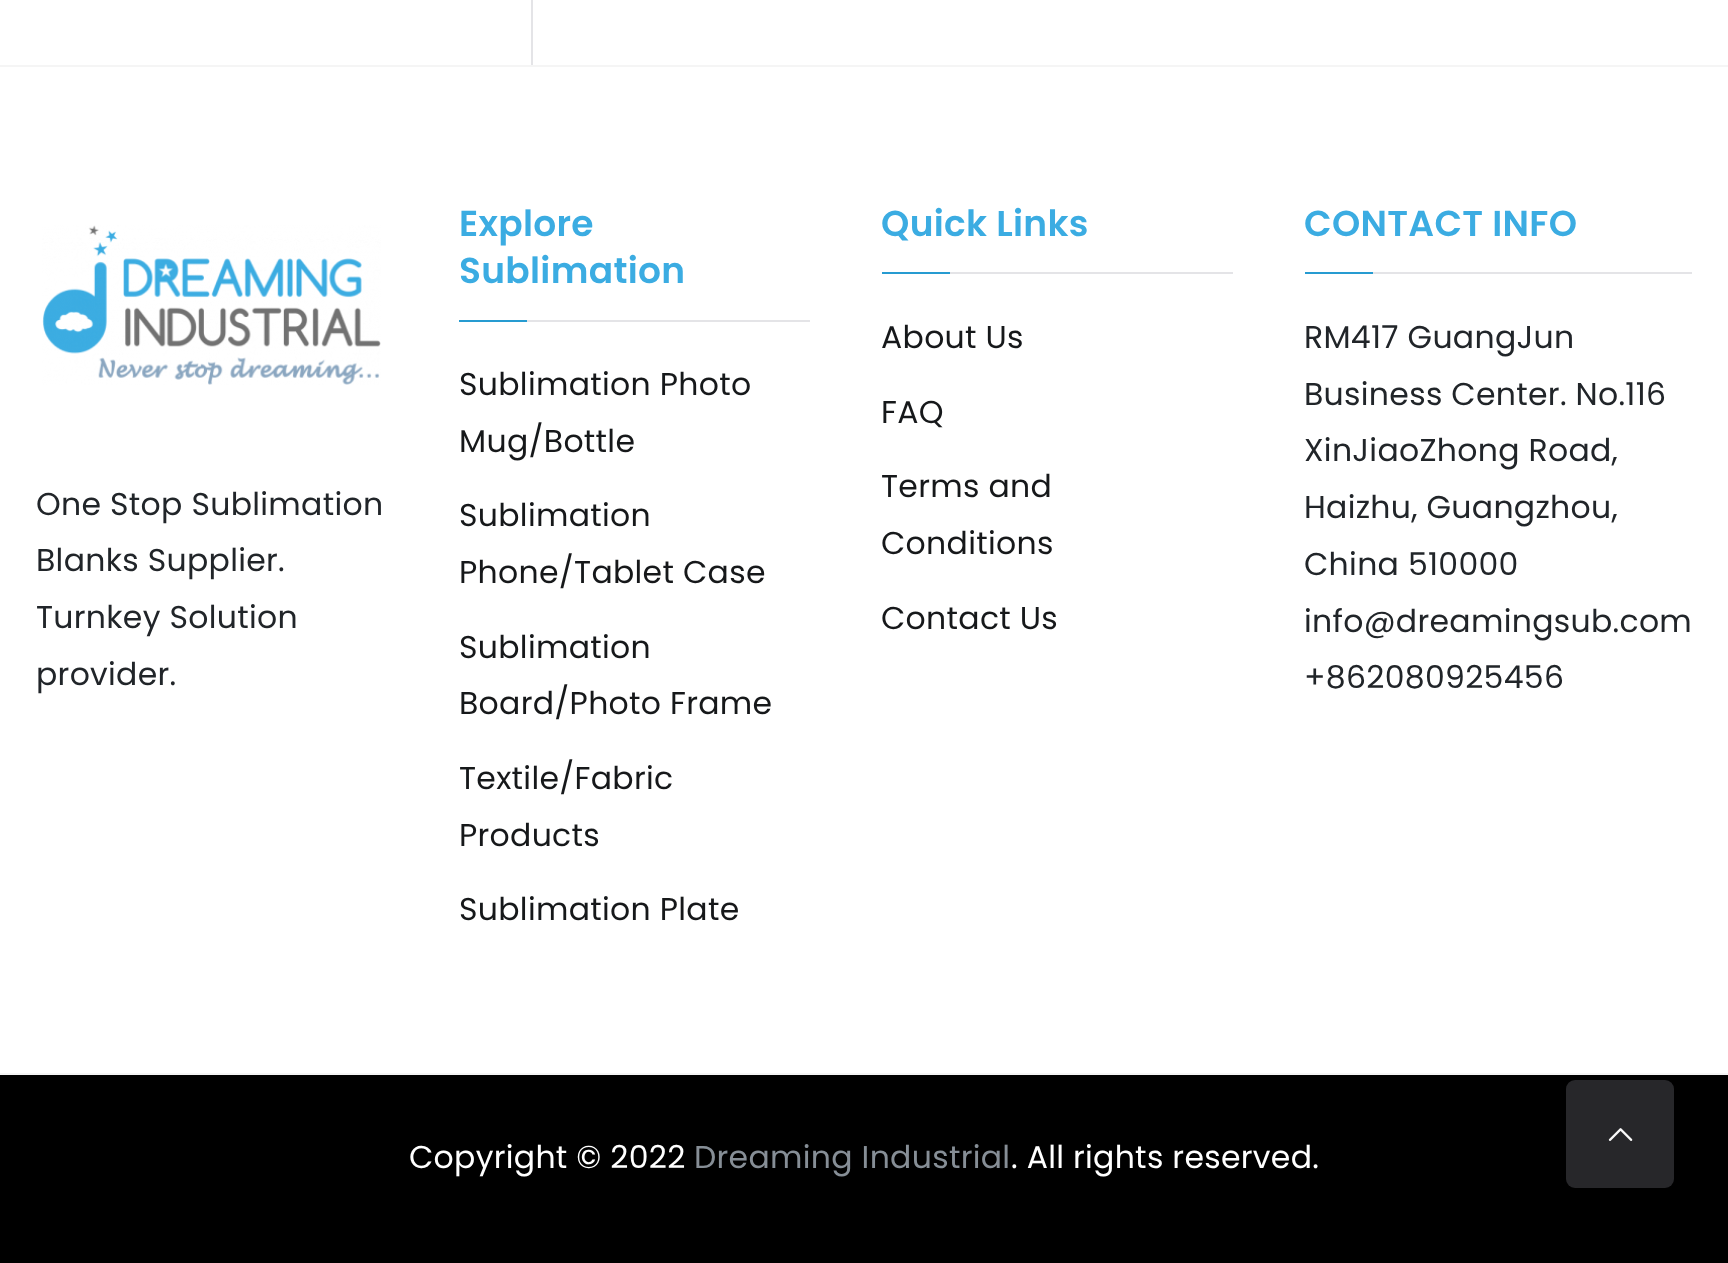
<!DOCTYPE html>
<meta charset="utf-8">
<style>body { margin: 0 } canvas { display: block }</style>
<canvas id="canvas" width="1728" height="1263"></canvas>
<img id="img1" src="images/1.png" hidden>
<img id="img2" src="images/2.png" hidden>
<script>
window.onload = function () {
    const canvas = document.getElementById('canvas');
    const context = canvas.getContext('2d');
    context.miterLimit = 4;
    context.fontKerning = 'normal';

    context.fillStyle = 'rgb(255, 255, 255)';
    context.fillRect(0, 0, 1728, 1263);
    context.fillStyle = 'rgb(228, 228, 231)';
    context.fillRect(531, 0, 2, 65);
    context.fillStyle = 'rgb(245, 245, 245)';
    context.fillRect(0, 65, 1728, 2);
    context.drawImage(document.getElementById('img1'), 42, 225, 339, 160);
    context.fillStyle = 'rgb(228, 228, 231)';
    context.fillRect(527, 320, 283, 2);
    context.fillStyle = 'rgb(38, 155, 209)';
    context.fillRect(459, 320, 68, 2);
    context.fillStyle = 'rgb(228, 228, 231)';
    context.fillRect(950, 272, 283, 2);
    context.fillStyle = 'rgb(38, 155, 209)';
    context.fillRect(882, 272, 68, 2);
    context.fillStyle = 'rgb(228, 228, 231)';
    context.fillRect(1373, 272, 319, 2);
    context.fillStyle = 'rgb(38, 155, 209)';
    context.fillRect(1305, 272, 68, 2);
    context.fillStyle = 'rgb(0, 0, 0)';
    context.fillRect(0, 1075, 1728, 188);
    context.fillStyle = 'rgb(245, 245, 245)';
    context.fillRect(0, 1073, 1728, 2);
    context.fillStyle = 'rgb(39, 39, 42)';
    context.beginPath();
    context.roundRect(1566, 1080, 108, 108, 9);
    context.fill();
    context.drawImage(document.getElementById('img2'), 1608, 1128, 25, 13);
    context.letterSpacing = '0.3px';
    context.font = '31.5px Poppins';
    context.fillStyle = 'rgb(33, 37, 41)';
    context.fillText('One Stop Sublimation', 36, 515);
    context.fillText('Blanks Supplier.', 36, 571);
    context.fillText('Turnkey Solution', 36, 628);
    context.fillText('provider.', 36, 685);
    context.font = '600 36px Poppins';
    context.fillStyle = 'rgb(59, 172, 226)';
    context.fillText('Explore', 459, 236);
    context.fillText('Sublimation', 459, 283);
    context.font = '31.5px Poppins';
    context.fillStyle = 'rgb(22, 24, 26)';
    context.fillText('Sublimation Photo', 459, 395);
    context.fillText('Mug/Bottle', 459, 452);
    context.fillText('Sublimation', 459, 526);
    context.fillText('Phone/Tablet Case', 459, 583);
    context.fillText('Sublimation', 459, 658);
    context.fillText('Board/Photo Frame', 459, 714);
    context.fillText('Textile/Fabric', 459, 789);
    context.fillText('Products', 459, 846);
    context.fillText('Sublimation Plate', 459, 920);
    context.font = '600 36px Poppins';
    context.fillStyle = 'rgb(59, 172, 226)';
    context.fillText('Quick Links', 881, 236);
    context.font = '31.5px Poppins';
    context.fillStyle = 'rgb(22, 24, 26)';
    context.fillText('About Us', 881, 348);
    context.fillText('FAQ', 881, 423);
    context.fillText('Terms and', 881, 497);
    context.fillText('Conditions', 881, 554);
    context.fillText('Contact Us', 881, 629);
    context.font = '600 36px Poppins';
    context.fillStyle = 'rgb(59, 172, 226)';
    context.fillText('CONTACT INFO', 1304, 236);
    context.font = '31.5px Poppins';
    context.fillStyle = 'rgb(33, 37, 41)';
    context.fillText('RM417 GuangJun', 1304, 348);
    context.fillText('Business Center. No.116', 1304, 405);
    context.fillText('XinJiaoZhong Road,', 1304, 461);
    context.fillText('Haizhu, Guangzhou,', 1304, 518);
    context.fillText('China 510000', 1304, 575);
    context.fillText('info@dreamingsub.com', 1304, 632);
    context.fillText('+862080925456', 1304, 688);
    context.fillStyle = 'rgb(255, 255, 255)';
    context.fillText('Copyright © 2022', 409, 1168);
    context.fillStyle = 'rgb(134, 142, 150)';
    context.fillText('Dreaming Industrial', 694, 1168);
    context.fillStyle = 'rgb(255, 255, 255)';
    context.fillText('. All rights reserved.', 1011, 1168);
};
</script>
